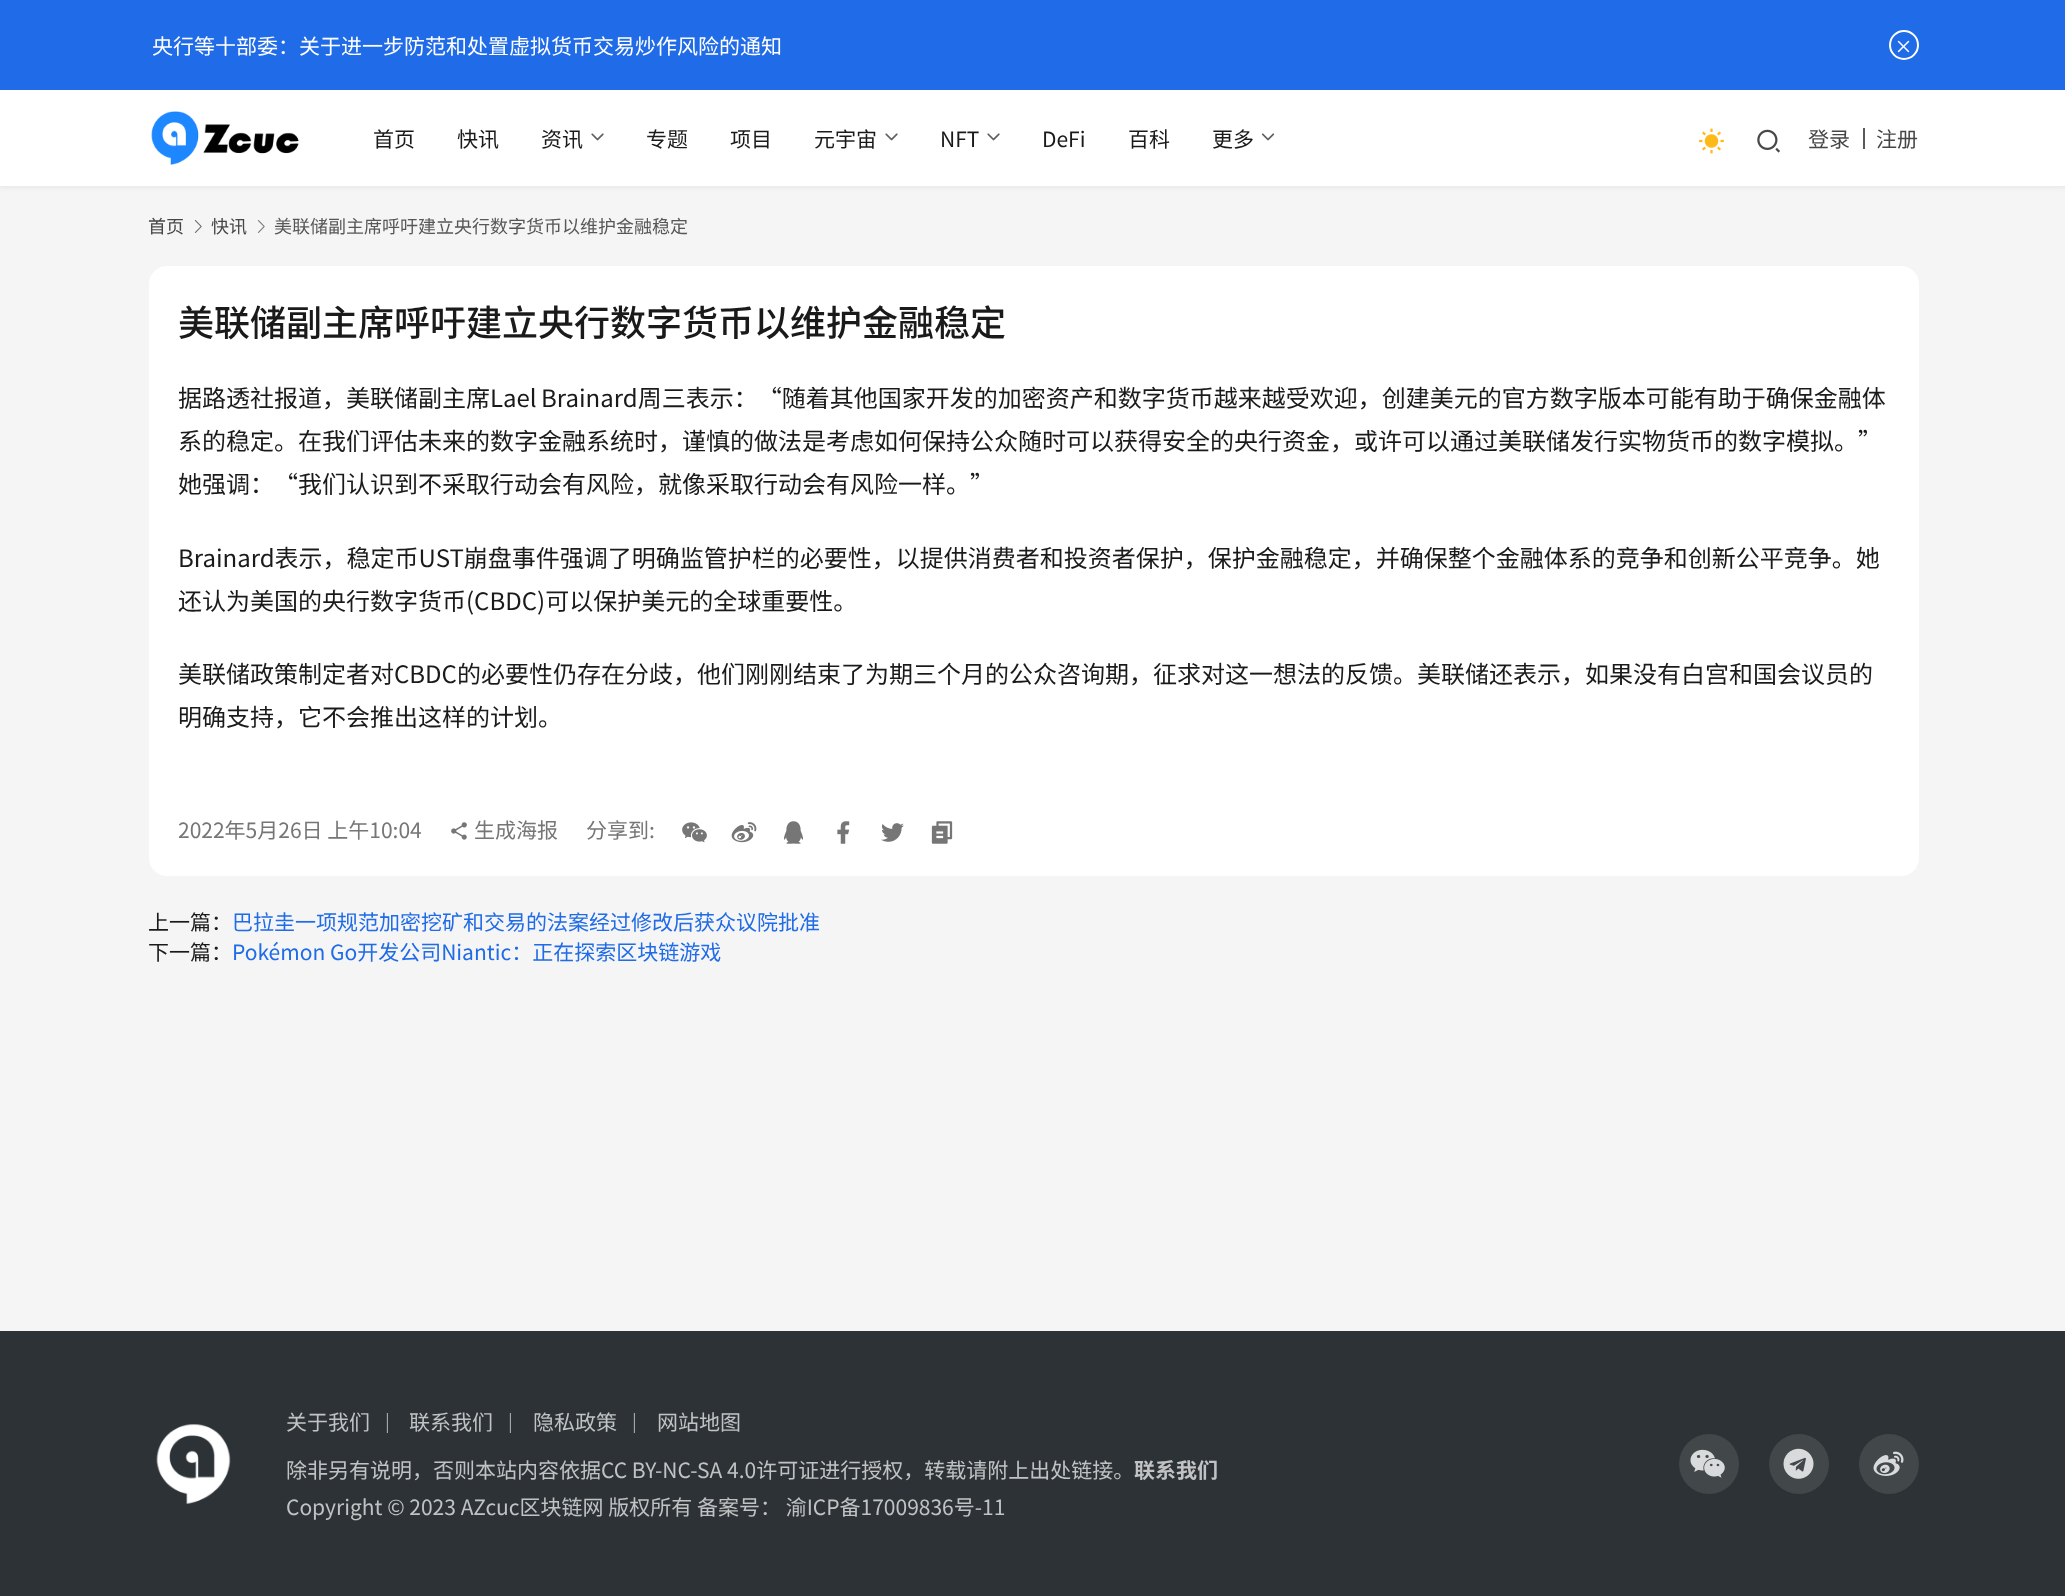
<!DOCTYPE html>
<meta charset="utf-8">
<style>body { margin: 0 } canvas { display: block }</style>
<canvas id="canvas" width="2065" height="1596"></canvas>
<img id="img1" src="images/1.png" hidden>
<img id="img2" src="images/2.png" hidden>
<img id="img3" src="images/3.png" hidden>
<img id="img4" src="images/4.png" hidden>
<img id="img5" src="images/5.png" hidden>
<img id="img6" src="images/6.png" hidden>
<img id="img7" src="images/7.png" hidden>
<img id="img8" src="images/8.png" hidden>
<img id="img9" src="images/9.png" hidden>
<img id="img10" src="images/10.png" hidden>
<img id="img11" src="images/11.png" hidden>
<img id="img12" src="images/12.png" hidden>
<img id="img13" src="images/13.png" hidden>
<img id="img14" src="images/14.png" hidden>
<img id="img15" src="images/15.png" hidden>
<img id="img16" src="images/16.png" hidden>
<img id="img17" src="images/17.png" hidden>
<img id="img18" src="images/18.png" hidden>
<img id="img19" src="images/19.png" hidden>
<script>
window.onload = function () {
    const canvas = document.getElementById('canvas');
    const context = canvas.getContext('2d');
    context.miterLimit = 4;
    context.fontKerning = 'normal';

    context.fillStyle = 'rgb(245, 245, 245)';
    context.fillRect(0, 0, 2065, 1596);
    context.fillStyle = 'rgba(26, 26, 26, 0.06)';
    context.filter = 'blur(2px)';
    context.beginPath();
    context.rect(-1, 89, 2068, 99);
    context.fill();
    context.filter = 'none';
    context.fillStyle = 'rgb(32, 107, 231)';
    context.fillRect(0, 0, 2065, 90);
    context.beginPath();
    context.arc(1904, 45, 14, 0, 2 * Math.PI);
    context.strokeStyle = 'rgb(255, 255, 255)';
    context.lineWidth = 2;
    context.stroke();
    context.drawImage(document.getElementById('img1'), 1897, 40, 13, 13);
    context.fillStyle = 'rgb(255, 255, 255)';
    context.fillRect(0, 90, 2065, 96);
    context.drawImage(document.getElementById('img2'), 151, 111, 148, 54);
    context.drawImage(document.getElementById('img3'), 591, 133, 13, 8);
    context.drawImage(document.getElementById('img3'), 885, 133, 13, 8);
    context.drawImage(document.getElementById('img3'), 987, 133, 13, 8);
    context.drawImage(document.getElementById('img4'), 1261, 133, 14, 8);
    context.drawImage(document.getElementById('img5'), 1699, 128, 25, 26);
    context.drawImage(document.getElementById('img6'), 1757, 129, 23, 24);
    context.fillStyle = 'rgb(90, 90, 90)';
    context.fillRect(1863, 128, 2, 21);
    context.drawImage(document.getElementById('img7'), 194, 220, 8, 13);
    context.drawImage(document.getElementById('img8'), 257, 220, 8, 13);
    context.fillStyle = 'rgb(255, 255, 255)';
    context.beginPath();
    context.roundRect(149, 266, 1770, 610, 18);
    context.fill();
    context.drawImage(document.getElementById('img9'), 451, 822, 16, 18);
    context.drawImage(document.getElementById('img10'), 682, 822, 25, 21);
    context.drawImage(document.getElementById('img11'), 731, 822, 26, 21);
    context.drawImage(document.getElementById('img12'), 784, 821, 19, 23);
    context.drawImage(document.getElementById('img13'), 837, 821, 13, 23);
    context.drawImage(document.getElementById('img14'), 881, 823, 23, 19);
    context.drawImage(document.getElementById('img15'), 931, 821, 22, 23);
    context.fillStyle = 'rgb(45, 50, 54)';
    context.fillRect(0, 1331, 2065, 265);
    context.drawImage(document.getElementById('img16'), 156, 1424, 75, 80);
    context.fillStyle = 'rgb(66, 71, 74)';
    context.beginPath();
    context.arc(1709, 1464, 30, 0, 2 * Math.PI);
    context.fill();
    context.drawImage(document.getElementById('img17'), 1690, 1449, 35, 29);
    context.beginPath();
    context.arc(1799, 1464, 30, 0, 2 * Math.PI);
    context.fill();
    context.drawImage(document.getElementById('img18'), 1783, 1448, 31, 31);
    context.beginPath();
    context.arc(1889, 1464, 30, 0, 2 * Math.PI);
    context.fill();
    context.drawImage(document.getElementById('img19'), 1873, 1451, 31, 25);
    context.font = '21px Noto Sans CJK SC';
    context.fillStyle = 'rgb(255, 255, 255)';
    context.fillText('央行等十部委：关于进一步防范和处置虚拟货币交易炒作风险的通知', 152, 54);
    context.fillStyle = 'rgb(26, 26, 26)';
    context.fillText('首页', 373, 147);
    context.fillText('快讯', 457, 147);
    context.fillText('资讯', 541, 147);
    context.fillText('专题', 646, 147);
    context.fillText('项目', 730, 147);
    context.fillText('元宇宙', 814, 147);
    context.fillText('NFT', 940, 147);
    context.fillText('DeFi', 1042, 147);
    context.fillText('百科', 1128, 147);
    context.fillText('更多', 1212, 147);
    context.fillStyle = 'rgb(70, 70, 70)';
    context.fillText('登录', 1808, 147);
    context.fillText('注册', 1876, 147);
    context.font = '18px Noto Sans CJK SC';
    context.fillText('首页', 148, 233);
    context.fillText('快讯', 211, 233);
    context.fillStyle = 'rgb(87, 87, 87)';
    context.fillText('美联储副主席呼吁建立央行数字货币以维护金融稳定', 274, 233);
    context.font = '500 36px Noto Sans CJK SC';
    context.fillStyle = 'rgb(26, 26, 26)';
    context.fillText('美联储副主席呼吁建立央行数字货币以维护金融稳定', 178, 336);
    context.wordSpacing = '-1px';
    context.font = '24px Noto Sans CJK SC';
    context.fillText('据路透社报道，美联储副主席Lael Brainard周三表示：“随着其他国家开发的加密资产和数字货币越来越受欢迎，创建美元的官方数字版本可能有助于确保金融体', 178, 407);
    context.wordSpacing = '0px';
    context.fillText('系的稳定。在我们评估未来的数字金融系统时，谨慎的做法是考虑如何保持公众随时可以获得安全的央行资金，或许可以通过美联储发行实物货币的数字模拟。”', 178, 450);
    context.fillText('她强调：“我们认识到不采取行动会有风险，就像采取行动会有风险一样。”', 178, 493);
    context.fillText('Brainard表示，稳定币UST崩盘事件强调了明确监管护栏的必要性，以提供消费者和投资者保护，保护金融稳定，并确保整个金融体系的竞争和创新公平竞争。她', 178, 567);
    context.fillText('还认为美国的央行数字货币(CBDC)可以保护美元的全球重要性。', 178, 610);
    context.fillText('美联储政策制定者对CBDC的必要性仍存在分歧，他们刚刚结束了为期三个月的公众咨询期，征求对这一想法的反馈。美联储还表示，如果没有白宫和国会议员的', 178, 683);
    context.fillText('明确支持，它不会推出这样的计划。', 178, 726);
    context.font = '21px Noto Sans CJK SC';
    context.fillStyle = 'rgb(118, 118, 118)';
    context.fillText('2022年5月26日 上午10:04', 178, 838);
    context.fillText('生成海报', 474, 838);
    context.fillText('分享到:', 586, 838);
    context.fillStyle = 'rgb(26, 26, 26)';
    context.fillText('上一篇：', 148, 930);
    context.fillStyle = 'rgb(32, 107, 231)';
    context.fillText('巴拉圭一项规范加密挖矿和交易的法案经过修改后获众议院批准', 232, 930);
    context.fillStyle = 'rgb(26, 26, 26)';
    context.fillText('下一篇：', 148, 960);
    context.fillStyle = 'rgb(32, 107, 231)';
    context.fillText('Pokémon Go开发公司Niantic：正在探索区块链游戏', 232, 960);
    context.fillStyle = 'rgb(192, 194, 195)';
    context.fillText('关于我们', 286, 1430);
    context.font = '18px Noto Sans CJK SC';
    context.fillStyle = 'rgb(163, 165, 167)';
    context.fillText('|', 385, 1428);
    context.font = '21px Noto Sans CJK SC';
    context.fillStyle = 'rgb(192, 194, 195)';
    context.fillText('联系我们', 409, 1430);
    context.font = '18px Noto Sans CJK SC';
    context.fillStyle = 'rgb(163, 165, 167)';
    context.fillText('|', 508, 1428);
    context.font = '21px Noto Sans CJK SC';
    context.fillStyle = 'rgb(192, 194, 195)';
    context.fillText('隐私政策', 533, 1430);
    context.font = '18px Noto Sans CJK SC';
    context.fillStyle = 'rgb(163, 165, 167)';
    context.fillText('|', 632, 1428);
    context.font = '21px Noto Sans CJK SC';
    context.fillStyle = 'rgb(192, 194, 195)';
    context.fillText('网站地图', 657, 1430);
    context.fillText('除非另有说明，否则本站内容依据CC BY-NC-SA 4.0许可证进行授权，转载请附上出处链接。', 286, 1478);
    context.font = 'bold 21px Noto Sans CJK SC';
    context.fillText('联系我们', 1134, 1478);
    context.font = '21px Noto Sans CJK SC';
    context.fillText('Copyright © 2023 AZcuc区块链网 版权所有 备案号： 渝ICP备17009836号-11', 286, 1515);
};
</script>
